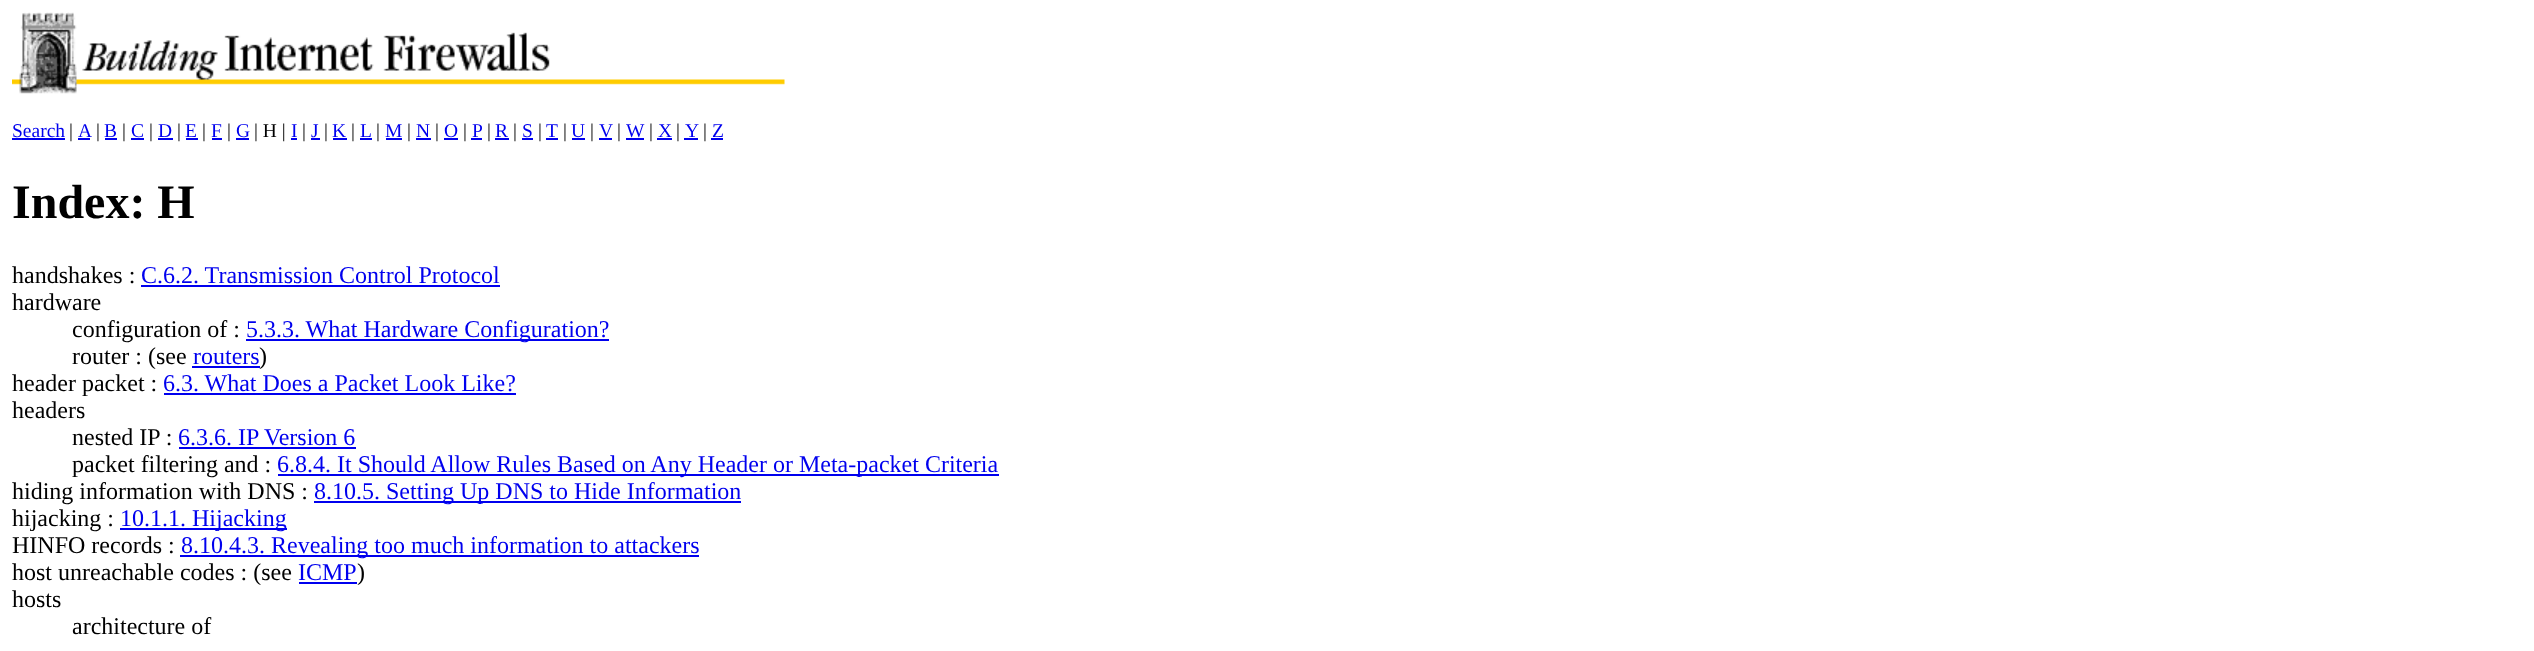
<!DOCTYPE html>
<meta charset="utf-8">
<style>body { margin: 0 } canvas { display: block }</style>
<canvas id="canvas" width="2534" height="651"></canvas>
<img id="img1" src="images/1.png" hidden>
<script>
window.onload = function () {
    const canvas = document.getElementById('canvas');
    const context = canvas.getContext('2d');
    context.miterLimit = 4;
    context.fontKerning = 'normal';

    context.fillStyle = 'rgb(255, 255, 255)';
    context.fillRect(0, 0, 2534, 651);
    context.drawImage(document.getElementById('img1'), 12, 12, 773, 82);
    context.fillStyle = 'rgb(0, 0, 238)';
    context.fillRect(12, 138, 53, 2);
    context.fillRect(78, 138, 12, 2);
    context.fillRect(105, 138, 12, 2);
    context.fillRect(131, 138, 13, 2);
    context.fillRect(158, 138, 15, 2);
    context.fillRect(186, 138, 12, 2);
    context.fillRect(212, 138, 10, 2);
    context.fillRect(236, 138, 13, 2);
    context.fillRect(291, 138, 6, 2);
    context.fillRect(311, 138, 9, 2);
    context.fillRect(333, 138, 14, 2);
    context.fillRect(360, 138, 12, 2);
    context.fillRect(386, 138, 16, 2);
    context.fillRect(416, 138, 15, 2);
    context.fillRect(444, 138, 14, 2);
    context.fillRect(471, 138, 11, 2);
    context.fillRect(495, 138, 14, 2);
    context.fillRect(522, 138, 11, 2);
    context.fillRect(546, 138, 12, 2);
    context.fillRect(572, 138, 13, 2);
    context.fillRect(599, 138, 13, 2);
    context.fillRect(626, 138, 18, 2);
    context.fillRect(657, 138, 15, 2);
    context.fillRect(684, 138, 14, 2);
    context.fillRect(711, 138, 12, 2);
    context.fillRect(141, 285, 359, 2);
    context.fillRect(246, 339, 363, 2);
    context.fillRect(192, 366, 68, 2);
    context.fillRect(164, 393, 352, 2);
    context.fillRect(179, 447, 177, 2);
    context.fillRect(278, 474, 721, 2);
    context.fillRect(314, 501, 427, 2);
    context.fillRect(120, 528, 167, 2);
    context.fillRect(180, 555, 519, 2);
    context.fillRect(299, 582, 58, 2);
    context.font = '19.5px Liberation Serif';
    context.fillText('Search', 12, 137);
    context.fillStyle = 'rgb(0, 0, 0)';
    context.fillText('|', 69, 137);
    context.fillStyle = 'rgb(0, 0, 238)';
    context.fillText('A', 78, 137);
    context.fillStyle = 'rgb(0, 0, 0)';
    context.fillText('|', 96, 137);
    context.fillStyle = 'rgb(0, 0, 238)';
    context.fillText('B', 104, 137);
    context.fillStyle = 'rgb(0, 0, 0)';
    context.fillText('|', 122, 137);
    context.fillStyle = 'rgb(0, 0, 238)';
    context.fillText('C', 131, 137);
    context.fillStyle = 'rgb(0, 0, 0)';
    context.fillText('|', 149, 137);
    context.fillStyle = 'rgb(0, 0, 238)';
    context.fillText('D', 158, 137);
    context.fillStyle = 'rgb(0, 0, 0)';
    context.fillText('|', 177, 137);
    context.fillStyle = 'rgb(0, 0, 238)';
    context.fillText('E', 185, 137);
    context.fillStyle = 'rgb(0, 0, 0)';
    context.fillText('|', 202, 137);
    context.fillStyle = 'rgb(0, 0, 238)';
    context.fillText('F', 211, 137);
    context.fillStyle = 'rgb(0, 0, 0)';
    context.fillText('|', 227, 137);
    context.fillStyle = 'rgb(0, 0, 238)';
    context.fillText('G', 236, 137);
    context.fillStyle = 'rgb(0, 0, 0)';
    context.fillText('| H |', 254, 137);
    context.fillStyle = 'rgb(0, 0, 238)';
    context.fillText('I', 291, 137);
    context.fillStyle = 'rgb(0, 0, 0)';
    context.fillText('|', 302, 137);
    context.fillStyle = 'rgb(0, 0, 238)';
    context.fillText('J', 311, 137);
    context.fillStyle = 'rgb(0, 0, 0)';
    context.fillText('|', 324, 137);
    context.fillStyle = 'rgb(0, 0, 238)';
    context.fillText('K', 332, 137);
    context.fillStyle = 'rgb(0, 0, 0)';
    context.fillText('|', 351, 137);
    context.fillStyle = 'rgb(0, 0, 238)';
    context.fillText('L', 360, 137);
    context.fillStyle = 'rgb(0, 0, 0)';
    context.fillText('|', 376, 137);
    context.fillStyle = 'rgb(0, 0, 238)';
    context.fillText('M', 385, 137);
    context.fillStyle = 'rgb(0, 0, 0)';
    context.fillText('|', 407, 137);
    context.fillStyle = 'rgb(0, 0, 238)';
    context.fillText('N', 416, 137);
    context.fillStyle = 'rgb(0, 0, 0)';
    context.fillText('|', 435, 137);
    context.fillStyle = 'rgb(0, 0, 238)';
    context.fillText('O', 444, 137);
    context.fillStyle = 'rgb(0, 0, 0)';
    context.fillText('|', 463, 137);
    context.fillStyle = 'rgb(0, 0, 238)';
    context.fillText('P', 472, 137);
    context.fillStyle = 'rgb(0, 0, 0)';
    context.fillText('|', 487, 137);
    context.fillStyle = 'rgb(0, 0, 238)';
    context.fillText('R', 495, 137);
    context.fillStyle = 'rgb(0, 0, 0)';
    context.fillText('|', 513, 137);
    context.fillStyle = 'rgb(0, 0, 238)';
    context.fillText('S', 522, 137);
    context.fillStyle = 'rgb(0, 0, 0)';
    context.fillText('|', 538, 137);
    context.fillStyle = 'rgb(0, 0, 238)';
    context.fillText('T', 546, 137);
    context.fillStyle = 'rgb(0, 0, 0)';
    context.fillText('|', 563, 137);
    context.fillStyle = 'rgb(0, 0, 238)';
    context.fillText('U', 571, 137);
    context.fillStyle = 'rgb(0, 0, 0)';
    context.fillText('|', 590, 137);
    context.fillStyle = 'rgb(0, 0, 238)';
    context.fillText('V', 599, 137);
    context.fillStyle = 'rgb(0, 0, 0)';
    context.fillText('|', 617, 137);
    context.fillStyle = 'rgb(0, 0, 238)';
    context.fillText('W', 626, 137);
    context.fillStyle = 'rgb(0, 0, 0)';
    context.fillText('|', 649, 137);
    context.fillStyle = 'rgb(0, 0, 238)';
    context.fillText('X', 658, 137);
    context.fillStyle = 'rgb(0, 0, 0)';
    context.fillText('|', 676, 137);
    context.fillStyle = 'rgb(0, 0, 238)';
    context.fillText('Y', 685, 137);
    context.fillStyle = 'rgb(0, 0, 0)';
    context.fillText('|', 703, 137);
    context.fillStyle = 'rgb(0, 0, 238)';
    context.fillText('Z', 712, 137);
    context.font = 'bold 48px Liberation Serif';
    context.fillStyle = 'rgb(0, 0, 0)';
    context.fillText('Index: H', 12, 218);
    context.font = '24px Liberation Serif';
    context.fillText('handshakes :', 12, 283);
    context.fillStyle = 'rgb(0, 0, 238)';
    context.fillText('C.6.2. Transmission Control Protocol', 141, 283);
    context.fillStyle = 'rgb(0, 0, 0)';
    context.fillText('hardware', 12, 310);
    context.fillText('configuration of :', 72, 337);
    context.fillStyle = 'rgb(0, 0, 238)';
    context.fillText('5.3.3. What Hardware Configuration?', 246, 337);
    context.fillStyle = 'rgb(0, 0, 0)';
    context.fillText('router : (see', 72, 364);
    context.fillStyle = 'rgb(0, 0, 238)';
    context.fillText('routers', 193, 364);
    context.fillStyle = 'rgb(0, 0, 0)';
    context.fillText(')', 259, 364);
    context.fillText('header packet :', 12, 391);
    context.fillStyle = 'rgb(0, 0, 238)';
    context.fillText('6.3. What Does a Packet Look Like?', 163, 391);
    context.fillStyle = 'rgb(0, 0, 0)';
    context.fillText('headers', 12, 418);
    context.fillText('nested IP :', 72, 445);
    context.fillStyle = 'rgb(0, 0, 238)';
    context.fillText('6.3.6. IP Version 6', 178, 445);
    context.fillStyle = 'rgb(0, 0, 0)';
    context.fillText('packet filtering and :', 72, 472);
    context.fillStyle = 'rgb(0, 0, 238)';
    context.fillText('6.8.4. It Should Allow Rules Based on Any Header or Meta-packet Criteria', 277, 472);
    context.fillStyle = 'rgb(0, 0, 0)';
    context.fillText('hiding information with DNS :', 12, 499);
    context.fillStyle = 'rgb(0, 0, 238)';
    context.fillText('8.10.5. Setting Up DNS to Hide Information', 314, 499);
    context.fillStyle = 'rgb(0, 0, 0)';
    context.fillText('hijacking :', 12, 526);
    context.fillStyle = 'rgb(0, 0, 238)';
    context.fillText('10.1.1. Hijacking', 120, 526);
    context.fillStyle = 'rgb(0, 0, 0)';
    context.fillText('HINFO records :', 12, 553);
    context.fillStyle = 'rgb(0, 0, 238)';
    context.fillText('8.10.4.3. Revealing too much information to attackers', 181, 553);
    context.fillStyle = 'rgb(0, 0, 0)';
    context.fillText('host unreachable codes : (see', 12, 580);
    context.fillStyle = 'rgb(0, 0, 238)';
    context.fillText('ICMP', 298, 580);
    context.fillStyle = 'rgb(0, 0, 0)';
    context.fillText(')', 357, 580);
    context.fillText('hosts', 12, 607);
    context.fillText('architecture of', 72, 634);
};
</script>
